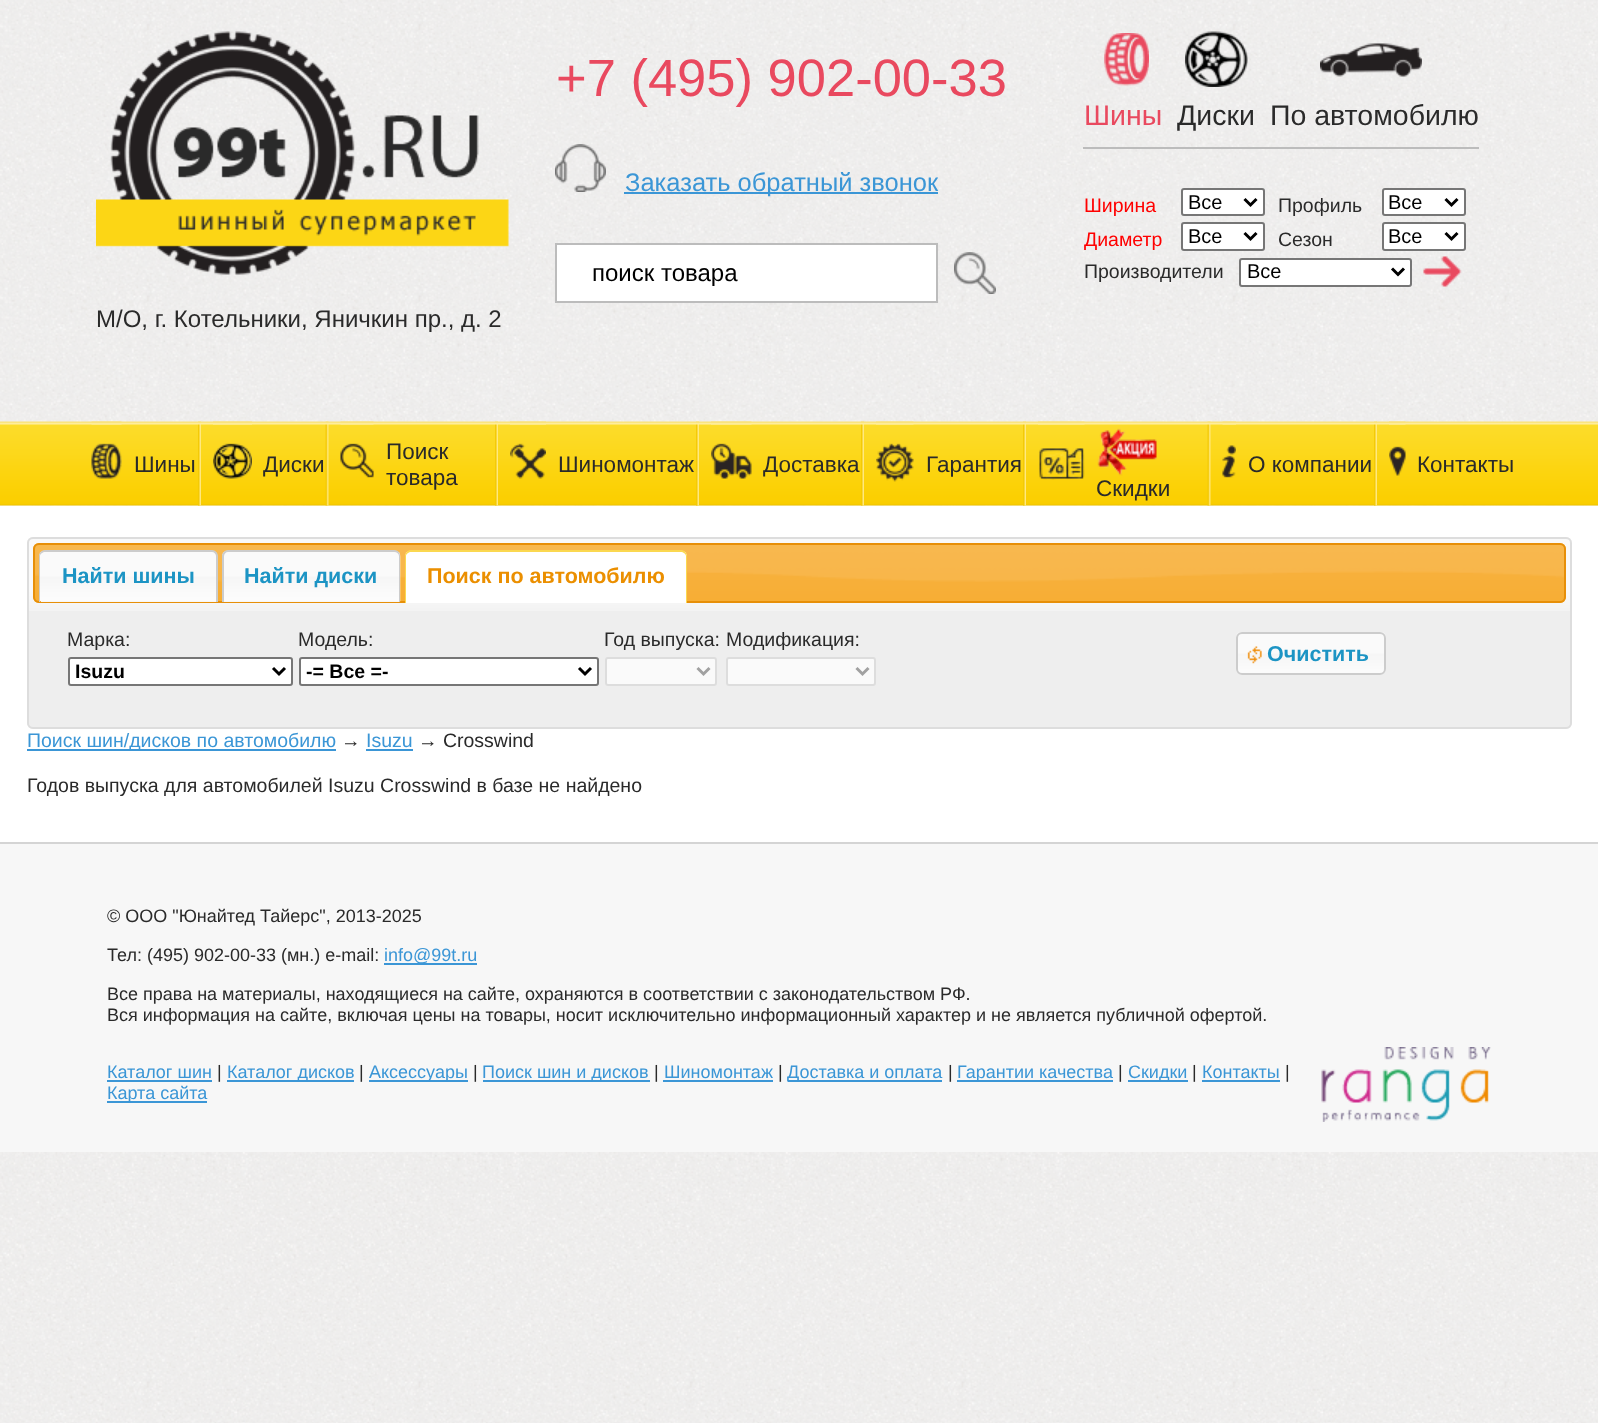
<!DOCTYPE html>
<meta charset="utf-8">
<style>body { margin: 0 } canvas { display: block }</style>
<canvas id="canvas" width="1598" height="1423"></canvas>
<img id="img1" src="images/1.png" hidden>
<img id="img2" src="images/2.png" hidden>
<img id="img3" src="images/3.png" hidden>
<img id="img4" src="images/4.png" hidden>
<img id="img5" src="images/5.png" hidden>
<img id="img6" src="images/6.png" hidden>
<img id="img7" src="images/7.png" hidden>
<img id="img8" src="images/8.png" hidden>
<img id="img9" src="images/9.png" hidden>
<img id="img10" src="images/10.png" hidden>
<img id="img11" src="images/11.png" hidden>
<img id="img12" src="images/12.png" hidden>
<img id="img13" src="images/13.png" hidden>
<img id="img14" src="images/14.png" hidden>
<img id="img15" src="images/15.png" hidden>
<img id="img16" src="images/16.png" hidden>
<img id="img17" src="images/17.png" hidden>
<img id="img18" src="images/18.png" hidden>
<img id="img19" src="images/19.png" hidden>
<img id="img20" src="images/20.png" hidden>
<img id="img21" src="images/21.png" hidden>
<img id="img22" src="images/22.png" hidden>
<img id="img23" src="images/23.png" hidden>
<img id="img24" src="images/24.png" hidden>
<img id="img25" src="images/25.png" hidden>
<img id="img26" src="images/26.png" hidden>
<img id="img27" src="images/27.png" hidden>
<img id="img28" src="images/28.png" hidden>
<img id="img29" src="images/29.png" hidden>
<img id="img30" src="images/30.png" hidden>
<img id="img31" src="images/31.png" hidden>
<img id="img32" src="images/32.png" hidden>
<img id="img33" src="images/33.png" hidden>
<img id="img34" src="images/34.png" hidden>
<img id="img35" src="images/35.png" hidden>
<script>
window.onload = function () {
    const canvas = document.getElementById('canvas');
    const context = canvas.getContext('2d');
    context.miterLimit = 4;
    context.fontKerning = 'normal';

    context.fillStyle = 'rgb(255, 255, 255)';
    context.fillRect(0, 0, 1598, 1423);
    context.drawImage(document.getElementById('img1'), 0, 0, 1598, 1423);
    context.drawImage(document.getElementById('img2'), 555, 144, 51, 48);
    context.fillStyle = 'rgb(59, 150, 214)';
    context.fillRect(624, 192, 314, 2);
    context.fillStyle = 'rgb(255, 255, 255)';
    context.beginPath();
    context.rect(556, 244, 381, 58);
    context.fill();
    context.strokeStyle = 'rgb(188, 188, 188)';
    context.lineWidth = 2;
    context.stroke();
    context.drawImage(document.getElementById('img3'), 954, 252, 42, 42);
    context.drawImage(document.getElementById('img4'), 1104, 33, 45, 53);
    context.drawImage(document.getElementById('img5'), 1185, 31, 63, 56);
    context.drawImage(document.getElementById('img6'), 1320, 43, 102, 34);
    context.fillStyle = 'rgb(188, 188, 188)';
    context.fillRect(1083, 147, 396, 2);
    context.fillStyle = 'rgb(255, 255, 255)';
    context.beginPath();
    context.roundRect(1182, 189, 82, 26, 2);
    context.fill();
    context.strokeStyle = 'rgb(118, 118, 118)';
    context.stroke();
    context.beginPath();
    context.moveTo(1244.5, 199);
    context.lineTo(1250.5, 205);
    context.lineTo(1256.5, 199);
    context.strokeStyle = 'rgb(0, 0, 0)';
    context.lineWidth = 3;
    context.stroke();
    context.beginPath();
    context.roundRect(1383, 189, 82, 26, 2);
    context.fill();
    context.strokeStyle = 'rgb(118, 118, 118)';
    context.lineWidth = 2;
    context.stroke();
    context.beginPath();
    context.moveTo(1445.5, 199);
    context.lineTo(1451.5, 205);
    context.lineTo(1457.5, 199);
    context.strokeStyle = 'rgb(0, 0, 0)';
    context.lineWidth = 3;
    context.stroke();
    context.beginPath();
    context.roundRect(1182, 223, 82, 27, 2);
    context.fill();
    context.strokeStyle = 'rgb(118, 118, 118)';
    context.lineWidth = 2;
    context.stroke();
    context.beginPath();
    context.moveTo(1244.5, 233);
    context.lineTo(1250.5, 239);
    context.lineTo(1256.5, 233);
    context.strokeStyle = 'rgb(0, 0, 0)';
    context.lineWidth = 3;
    context.stroke();
    context.beginPath();
    context.roundRect(1383, 223, 82, 27, 2);
    context.fill();
    context.strokeStyle = 'rgb(118, 118, 118)';
    context.lineWidth = 2;
    context.stroke();
    context.beginPath();
    context.moveTo(1445.5, 233);
    context.lineTo(1451.5, 239);
    context.lineTo(1457.5, 233);
    context.strokeStyle = 'rgb(0, 0, 0)';
    context.lineWidth = 3;
    context.stroke();
    context.beginPath();
    context.roundRect(1240, 259, 171, 27, 2);
    context.fill();
    context.strokeStyle = 'rgb(118, 118, 118)';
    context.lineWidth = 2;
    context.stroke();
    context.beginPath();
    context.moveTo(1392, 268.5);
    context.lineTo(1398, 274.5);
    context.lineTo(1404, 268.5);
    context.strokeStyle = 'rgb(0, 0, 0)';
    context.lineWidth = 3;
    context.stroke();
    context.drawImage(document.getElementById('img7'), 1423, 256, 39, 31);
    context.drawImage(document.getElementById('img8'), 96, 31, 413, 244);
    context.drawImage(document.getElementById('img9'), 0, 421, 1598, 85);
    context.drawImage(document.getElementById('img10'), 198, 421, 3, 85);
    context.drawImage(document.getElementById('img11'), 91, 421, 31, 58);
    context.drawImage(document.getElementById('img12'), 325, 421, 4, 85);
    context.drawImage(document.getElementById('img13'), 213, 421, 39, 58);
    context.drawImage(document.getElementById('img14'), 495, 421, 3, 85);
    context.drawImage(document.getElementById('img15'), 340, 421, 34, 57);
    context.drawImage(document.getElementById('img16'), 696, 421, 3, 85);
    context.drawImage(document.getElementById('img17'), 510, 421, 36, 58);
    context.drawImage(document.getElementById('img18'), 861, 421, 3, 85);
    context.drawImage(document.getElementById('img19'), 711, 421, 41, 58);
    context.drawImage(document.getElementById('img20'), 1023, 421, 3, 85);
    context.drawImage(document.getElementById('img21'), 876, 421, 38, 61);
    context.drawImage(document.getElementById('img22'), 1374, 421, 3, 85);
    context.drawImage(document.getElementById('img23'), 1222, 421, 14, 57);
    context.drawImage(document.getElementById('img24'), 1389, 421, 17, 55);
    context.drawImage(document.getElementById('img25'), 1207, 421, 4, 85);
    context.drawImage(document.getElementById('img26'), 1038, 421, 47, 59);
    context.drawImage(document.getElementById('img27'), 1097, 428, 60, 48);
    context.fillRect(0, 506, 1598, 336);
    context.fillStyle = 'rgb(238, 238, 238)';
    context.beginPath();
    context.roundRect(27, 537, 1545, 192, 6);
    context.fill();
    context.drawImage(document.getElementById('img28'), 27, 538, 1545, 73);
    context.beginPath();
    context.roundRect(28, 538, 1543, 190, 5);
    context.strokeStyle = 'rgb(221, 221, 221)';
    context.lineWidth = 2;
    context.stroke();
    context.drawImage(document.getElementById('img29'), 33, 543, 1533, 60);
    context.beginPath();
    context.roundRect(34, 544, 1531, 58, 5);
    context.strokeStyle = 'rgb(231, 143, 8)';
    context.stroke();
    context.fillStyle = 'rgb(246, 246, 246)';
    context.fillRect(41, 601, 175, 1);
    context.drawImage(document.getElementById('img30'), 39, 550, 179, 52);
    context.fillStyle = 'rgb(204, 204, 204)';
    context.beginPath();
    context.moveTo(45, 550);
    context.lineTo(212, 550);
    context.bezierCurveTo(215, 550, 218, 553, 218, 556);
    context.lineTo(218, 602);
    context.lineTo(39, 602);
    context.lineTo(39, 556);
    context.bezierCurveTo(39, 553, 42, 550, 45, 550);
    context.closePath();
    context.moveTo(45, 552);
    context.lineTo(212, 552);
    context.bezierCurveTo(214, 552, 216, 554, 216, 556);
    context.lineTo(216, 602);
    context.lineTo(40, 602);
    context.lineTo(40, 556);
    context.bezierCurveTo(40, 554, 43, 552, 45, 552);
    context.closePath();
    context.fill('evenodd');
    context.fillStyle = 'rgb(246, 246, 246)';
    context.beginPath();
    context.roundRect(224, 552, 175, 50, [5, 5, 0, 0]);
    context.fill();
    context.drawImage(document.getElementById('img31'), 222, 550, 179, 52);
    context.fillStyle = 'rgb(204, 204, 204)';
    context.beginPath();
    context.moveTo(228, 550);
    context.lineTo(394, 550);
    context.bezierCurveTo(398, 550, 400, 553, 400, 556);
    context.lineTo(400, 602);
    context.lineTo(222, 602);
    context.lineTo(222, 556);
    context.bezierCurveTo(222, 553, 225, 550, 228, 550);
    context.closePath();
    context.moveTo(228, 552);
    context.lineTo(394, 552);
    context.bezierCurveTo(397, 552, 399, 554, 399, 556);
    context.lineTo(399, 602);
    context.lineTo(224, 602);
    context.lineTo(224, 556);
    context.bezierCurveTo(224, 554, 226, 552, 228, 552);
    context.closePath();
    context.fill('evenodd');
    context.drawImage(document.getElementById('img32'), 405, 550, 282, 53);
    context.fillStyle = 'rgb(251, 216, 80)';
    context.beginPath();
    context.moveTo(411, 550);
    context.lineTo(681, 550);
    context.bezierCurveTo(684, 550, 687, 553, 687, 556);
    context.lineTo(687, 603);
    context.lineTo(405, 603);
    context.lineTo(405, 556);
    context.bezierCurveTo(405, 553, 408, 550, 411, 550);
    context.closePath();
    context.moveTo(411, 552);
    context.lineTo(681, 552);
    context.bezierCurveTo(683, 552, 686, 554, 686, 556);
    context.lineTo(686, 603);
    context.lineTo(406, 603);
    context.lineTo(406, 556);
    context.bezierCurveTo(406, 554, 409, 552, 411, 552);
    context.closePath();
    context.fill('evenodd');
    context.fillStyle = 'rgb(255, 255, 255)';
    context.beginPath();
    context.roundRect(69, 658, 223, 27, 2);
    context.fill();
    context.strokeStyle = 'rgb(118, 118, 118)';
    context.stroke();
    context.beginPath();
    context.moveTo(273, 668);
    context.lineTo(279, 674);
    context.lineTo(285, 668);
    context.strokeStyle = 'rgb(0, 0, 0)';
    context.lineWidth = 3;
    context.stroke();
    context.beginPath();
    context.roundRect(300, 658, 298, 27, 2);
    context.fill();
    context.strokeStyle = 'rgb(118, 118, 118)';
    context.lineWidth = 2;
    context.stroke();
    context.beginPath();
    context.moveTo(579, 668);
    context.lineTo(585, 674);
    context.lineTo(591, 668);
    context.strokeStyle = 'rgb(0, 0, 0)';
    context.lineWidth = 3;
    context.stroke();
    context.fillStyle = 'rgb(250, 250, 250)';
    context.beginPath();
    context.roundRect(605, 657, 112, 29, 3);
    context.fill();
    context.beginPath();
    context.roundRect(606, 658, 110, 27, 2);
    context.strokeStyle = 'rgba(154, 154, 154, 0.3)';
    context.lineWidth = 2;
    context.stroke();
    context.beginPath();
    context.moveTo(697.5, 668);
    context.lineTo(703.5, 674);
    context.lineTo(709.5, 668);
    context.strokeStyle = 'rgb(161, 161, 161)';
    context.lineWidth = 3;
    context.stroke();
    context.beginPath();
    context.roundRect(726, 657, 150, 29, 3);
    context.fill();
    context.beginPath();
    context.roundRect(727, 658, 148, 27, 2);
    context.strokeStyle = 'rgba(154, 154, 154, 0.3)';
    context.lineWidth = 2;
    context.stroke();
    context.beginPath();
    context.moveTo(856.5, 668);
    context.lineTo(862.5, 674);
    context.lineTo(868.5, 668);
    context.strokeStyle = 'rgb(161, 161, 161)';
    context.lineWidth = 3;
    context.stroke();
    context.drawImage(document.getElementById('img33'), 1236, 632, 150, 43);
    context.beginPath();
    context.roundRect(1237, 633, 148, 41, 5);
    context.strokeStyle = 'rgb(204, 204, 204)';
    context.lineWidth = 2;
    context.stroke();
    context.drawImage(document.getElementById('img34'), 1247, 646, 15, 18);
    context.fillStyle = 'rgb(59, 150, 214)';
    context.fillRect(27, 749, 309, 2);
    context.fillRect(366, 749, 47, 2);
    context.fillStyle = 'rgb(247, 247, 247)';
    context.fillRect(0, 844, 1598, 308);
    context.fillStyle = 'rgb(212, 212, 212)';
    context.fillRect(0, 842, 1598, 2);
    context.fillStyle = 'rgb(59, 150, 214)';
    context.fillRect(384, 963, 93, 2);
    context.fillRect(107, 1080, 105, 2);
    context.fillRect(227, 1080, 127, 2);
    context.fillRect(369, 1080, 99, 2);
    context.fillRect(483, 1080, 167, 2);
    context.fillRect(663, 1080, 110, 2);
    context.fillRect(788, 1080, 154, 2);
    context.fillRect(957, 1080, 156, 2);
    context.fillRect(1128, 1080, 60, 2);
    context.fillRect(1202, 1080, 78, 2);
    context.fillRect(107, 1101, 100, 2);
    context.drawImage(document.getElementById('img35'), 1321, 1047, 170, 75);
    context.font = '52.5px Liberation Sans';
    context.fillStyle = 'rgb(233, 73, 95)';
    context.fillText('+7 (495) 902-00-33', 556, 96);
    context.font = '25.5px Liberation Sans';
    context.fillStyle = 'rgb(59, 150, 214)';
    context.fillText('Заказать обратный звонок', 625, 191);
    context.font = '24px Liberation Sans';
    context.fillStyle = 'rgb(0, 0, 0)';
    context.fillText('поиск товара', 592, 281);
    context.font = '28.5px Liberation Sans';
    context.fillStyle = 'rgb(233, 73, 95)';
    context.fillText('Шины', 1084, 125);
    context.fillStyle = 'rgb(42, 42, 42)';
    context.fillText('Диски', 1177, 125);
    context.fillText('По автомобилю', 1270, 125);
    context.font = '19.5px Liberation Sans';
    context.fillStyle = 'rgb(255, 0, 0)';
    context.fillText('Ширина', 1084, 212);
    context.font = '20px Liberation Sans';
    context.fillStyle = 'rgb(0, 0, 0)';
    context.fillText('Все', 1188, 209);
    context.font = '19.5px Liberation Sans';
    context.fillStyle = 'rgb(42, 42, 42)';
    context.fillText('Профиль', 1278, 212);
    context.font = '20px Liberation Sans';
    context.fillStyle = 'rgb(0, 0, 0)';
    context.fillText('Все', 1388, 209);
    context.font = '19.5px Liberation Sans';
    context.fillStyle = 'rgb(255, 0, 0)';
    context.fillText('Диаметр', 1084, 246);
    context.font = '20px Liberation Sans';
    context.fillStyle = 'rgb(0, 0, 0)';
    context.fillText('Все', 1188, 243);
    context.font = '19.5px Liberation Sans';
    context.fillStyle = 'rgb(42, 42, 42)';
    context.fillText('Сезон', 1278, 246);
    context.font = '20px Liberation Sans';
    context.fillStyle = 'rgb(0, 0, 0)';
    context.fillText('Все', 1388, 243);
    context.font = '19.5px Liberation Sans';
    context.fillStyle = 'rgb(42, 42, 42)';
    context.fillText('Производители', 1084, 278);
    context.font = '20px Liberation Sans';
    context.fillStyle = 'rgb(0, 0, 0)';
    context.fillText('Все', 1247, 278);
    context.font = '24px Liberation Sans';
    context.fillStyle = 'rgb(42, 42, 42)';
    context.fillText('М/О, г. Котельники, Яничкин пр., д. 2', 96, 327);
    context.font = '22.5px Liberation Sans';
    context.fillText('Шины', 134, 472);
    context.fillText('Диски', 263, 472);
    context.fillText('Поиск', 386, 459);
    context.fillText('товара', 386, 485);
    context.fillText('Шиномонтаж', 558, 472);
    context.fillText('Доставка', 763, 472);
    context.fillText('Гарантия', 926, 472);
    context.fillText('О компании', 1248, 472);
    context.fillText('Контакты', 1417, 472);
    context.fillText('Скидки', 1096, 496);
    context.font = 'bold 21.5px Liberation Sans';
    context.fillStyle = 'rgb(28, 148, 196)';
    context.fillText('Найти шины', 62, 583);
    context.fillText('Найти диски', 244, 583);
    context.fillStyle = 'rgb(235, 143, 0)';
    context.fillText('Поиск по автомобилю', 427, 583);
    context.font = '19.5px Liberation Sans';
    context.fillStyle = 'rgb(42, 42, 42)';
    context.fillText('Марка:', 67, 646);
    context.fillText('Модель:', 298, 646);
    context.fillText('Год выпуска:', 604, 646);
    context.fillText('Модификация:', 726, 646);
    context.font = 'bold 19.5px Liberation Sans';
    context.fillStyle = 'rgb(0, 0, 0)';
    context.fillText('Isuzu', 75, 678);
    context.fillText('-= Все =-', 306, 678);
    context.font = 'bold 21.5px Liberation Sans';
    context.fillStyle = 'rgb(28, 148, 196)';
    context.fillText('Очистить', 1267, 661);
    context.font = '19.5px Liberation Sans';
    context.fillStyle = 'rgb(59, 150, 214)';
    context.fillText('Поиск шин/дисков по автомобилю', 27, 747);
    context.fillStyle = 'rgb(42, 42, 42)';
    context.fillText('→', 341, 747);
    context.fillStyle = 'rgb(59, 150, 214)';
    context.fillText('Isuzu', 366, 747);
    context.fillStyle = 'rgb(42, 42, 42)';
    context.fillText('→ Crosswind', 418, 747);
    context.fillText('Годов выпуска для автомобилей Isuzu Crosswind в базе не найдено', 27, 792);
    context.font = '18px Liberation Sans';
    context.fillText('© ООО "Юнайтед Тайерс", 2013-2025', 107, 922);
    context.fillText('Тел: (495) 902-00-33 (мн.) e-mail:', 107, 961);
    context.fillStyle = 'rgb(59, 150, 214)';
    context.fillText('info@99t.ru', 384, 961);
    context.fillStyle = 'rgb(42, 42, 42)';
    context.fillText('Все права на материалы, находящиеся на сайте, охраняются в соответствии с законодательством РФ.', 107, 1000);
    context.fillText('Вся информация на сайте, включая цены на товары, носит исключительно информационный характер и не является публичной офертой.', 107, 1021);
    context.fillStyle = 'rgb(59, 150, 214)';
    context.fillText('Каталог шин', 107, 1078);
    context.fillStyle = 'rgb(42, 42, 42)';
    context.fillText('|', 217, 1078);
    context.fillStyle = 'rgb(59, 150, 214)';
    context.fillText('Каталог дисков', 227, 1078);
    context.fillStyle = 'rgb(42, 42, 42)';
    context.fillText('|', 359, 1078);
    context.fillStyle = 'rgb(59, 150, 214)';
    context.fillText('Аксессуары', 369, 1078);
    context.fillStyle = 'rgb(42, 42, 42)';
    context.fillText('|', 473, 1078);
    context.fillStyle = 'rgb(59, 150, 214)';
    context.fillText('Поиск шин и дисков', 482, 1078);
    context.fillStyle = 'rgb(42, 42, 42)';
    context.fillText('|', 654, 1078);
    context.fillStyle = 'rgb(59, 150, 214)';
    context.fillText('Шиномонтаж', 664, 1078);
    context.fillStyle = 'rgb(42, 42, 42)';
    context.fillText('|', 778, 1078);
    context.fillStyle = 'rgb(59, 150, 214)';
    context.fillText('Доставка и оплата', 787, 1078);
    context.fillStyle = 'rgb(42, 42, 42)';
    context.fillText('|', 948, 1078);
    context.fillStyle = 'rgb(59, 150, 214)';
    context.fillText('Гарантии качества', 957, 1078);
    context.fillStyle = 'rgb(42, 42, 42)';
    context.fillText('|', 1118, 1078);
    context.fillStyle = 'rgb(59, 150, 214)';
    context.fillText('Скидки', 1128, 1078);
    context.fillStyle = 'rgb(42, 42, 42)';
    context.fillText('|', 1192, 1078);
    context.fillStyle = 'rgb(59, 150, 214)';
    context.fillText('Контакты', 1202, 1078);
    context.fillStyle = 'rgb(42, 42, 42)';
    context.fillText('|', 1285, 1078);
    context.fillStyle = 'rgb(59, 150, 214)';
    context.fillText('Карта сайта', 107, 1099);
};
</script>
